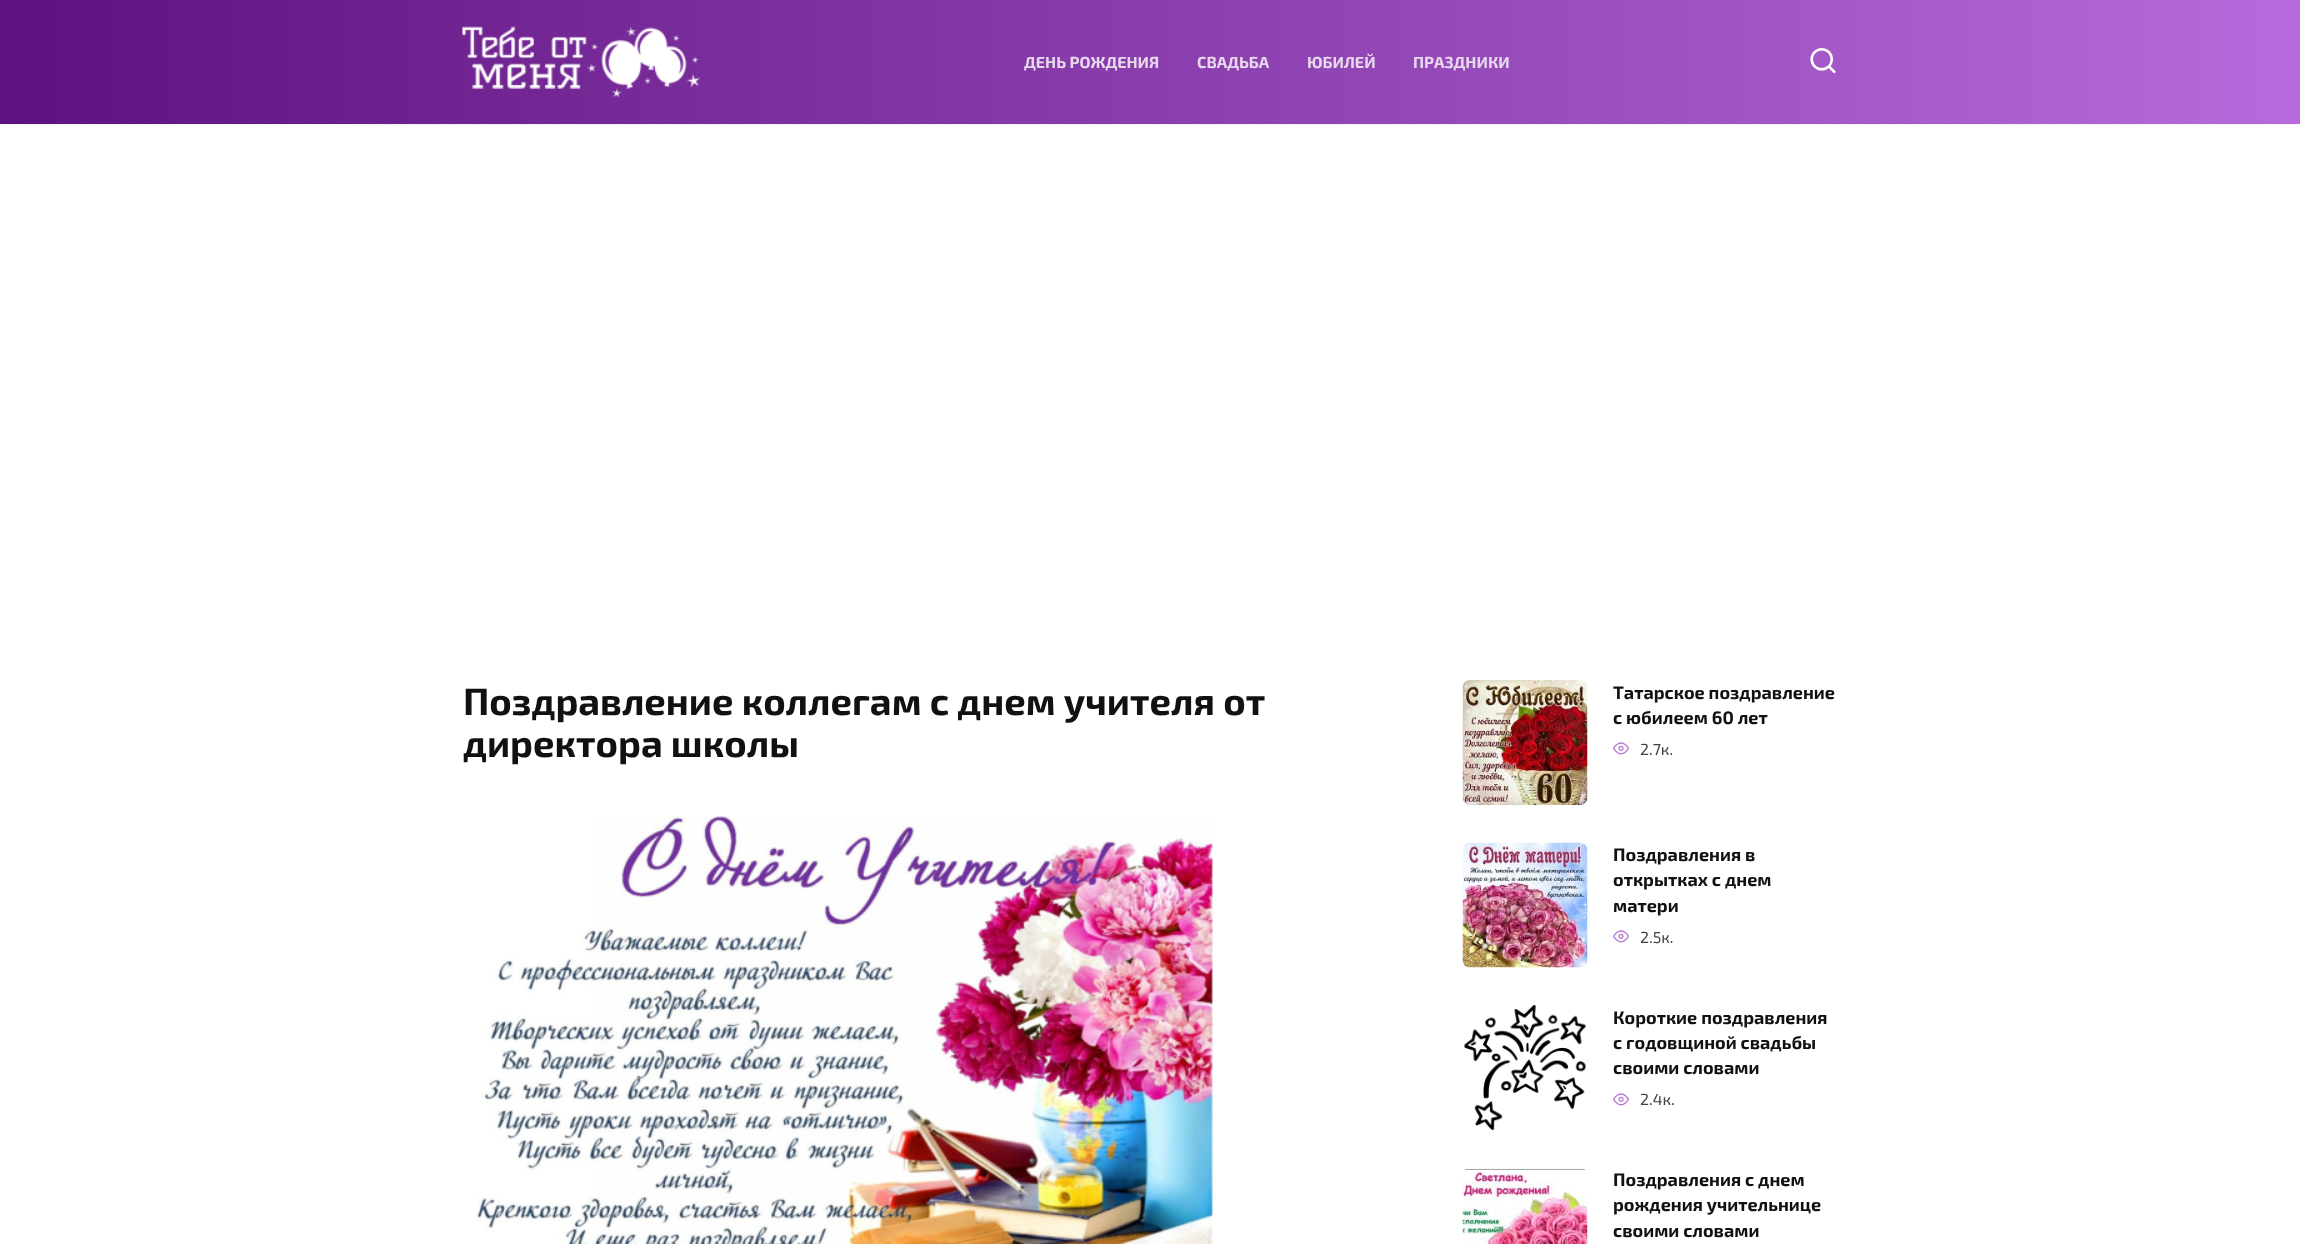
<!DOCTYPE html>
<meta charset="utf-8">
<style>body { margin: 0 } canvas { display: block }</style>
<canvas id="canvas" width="2300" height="1244"></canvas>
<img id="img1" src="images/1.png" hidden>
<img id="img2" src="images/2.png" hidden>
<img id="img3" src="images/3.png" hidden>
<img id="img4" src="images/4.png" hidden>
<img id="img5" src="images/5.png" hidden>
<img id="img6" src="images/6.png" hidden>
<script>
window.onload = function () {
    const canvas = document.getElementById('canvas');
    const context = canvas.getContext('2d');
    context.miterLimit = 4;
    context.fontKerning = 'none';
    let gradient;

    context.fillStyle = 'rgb(255, 255, 255)';
    context.fillRect(0, 0, 2300, 1244);
    gradient = context.createLinearGradient(0, 0, 2300, 0);
    gradient.addColorStop(0, 'rgb(93, 18, 127)');
    gradient.addColorStop(1, 'rgb(183, 106, 219)');
    context.fillStyle = gradient;
    context.fillRect(0, 0, 2300, 124);
    context.fillStyle = 'rgb(242, 245, 249)';
    context.fillRect(0, 124, 2300, 1);
    context.drawImage(document.getElementById('img1'), 462, 26, 238, 72);
    context.drawImage(document.getElementById('img2'), 477, 816, 736, 428);
    context.drawImage(document.getElementById('img3'), 1462, 680, 126, 125);
    context.drawImage(document.getElementById('img4'), 1462, 842, 126, 126);
    context.drawImage(document.getElementById('img5'), 1464, 1005, 122, 125);
    context.drawImage(document.getElementById('img6'), 1462, 1167, 126, 77);
    context.font = 'bold 16px "Exo 2"';
    context.fillStyle = 'rgb(231, 216, 238)';
    context.fillText('ДЕНЬ РОЖДЕНИЯ', 1024, 68);
    context.fillText('СВАДЬБА', 1197, 68);
    context.fillText('ЮБИЛЕЙ', 1307, 68);
    context.fillText('ПРАЗДНИКИ', 1413, 68);
    context.font = '30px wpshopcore';
    context.fillStyle = 'rgb(255, 255, 255)';
    context.fillText('🔍', 1808, 73);
    context.font = 'bold 38px "Exo 2"';
    context.fillStyle = 'rgb(17, 17, 17)';
    context.fillText('Поздравление коллегам с днем учителя от', 463, 715);
    context.fillText('директора школы', 463, 757);
    context.font = 'bold 18px "Exo 2"';
    context.fillText('Татарское поздравление', 1613, 699);
    context.fillText('с юбилеем 60 лет', 1613, 724);
    context.font = '16px wpshopcore';
    context.fillStyle = 'rgb(184, 123, 212)';
    context.fillText('👀', 1613, 755);
    context.font = '16px "Exo 2"';
    context.fillStyle = 'rgb(65, 65, 65)';
    context.fillText('2.7к.', 1640, 755);
    context.font = 'bold 18px "Exo 2"';
    context.fillStyle = 'rgb(17, 17, 17)';
    context.fillText('Поздравления в', 1613, 861);
    context.fillText('открытках с днем', 1613, 886);
    context.fillText('матери', 1613, 912);
    context.font = '16px wpshopcore';
    context.fillStyle = 'rgb(184, 123, 212)';
    context.fillText('👀', 1613, 943);
    context.font = '16px "Exo 2"';
    context.fillStyle = 'rgb(65, 65, 65)';
    context.fillText('2.5к.', 1640, 943);
    context.font = 'bold 18px "Exo 2"';
    context.fillStyle = 'rgb(17, 17, 17)';
    context.fillText('Короткие поздравления', 1613, 1024);
    context.fillText('с годовщиной свадьбы', 1613, 1049);
    context.fillText('своими словами', 1613, 1074);
    context.font = '16px wpshopcore';
    context.fillStyle = 'rgb(184, 123, 212)';
    context.fillText('👀', 1613, 1106);
    context.font = '16px "Exo 2"';
    context.fillStyle = 'rgb(65, 65, 65)';
    context.fillText('2.4к.', 1640, 1105);
    context.font = 'bold 18px "Exo 2"';
    context.fillStyle = 'rgb(17, 17, 17)';
    context.fillText('Поздравления с днем', 1613, 1186);
    context.fillText('рождения учительнице', 1613, 1211);
    context.fillText('своими словами', 1613, 1237);
};
</script>
